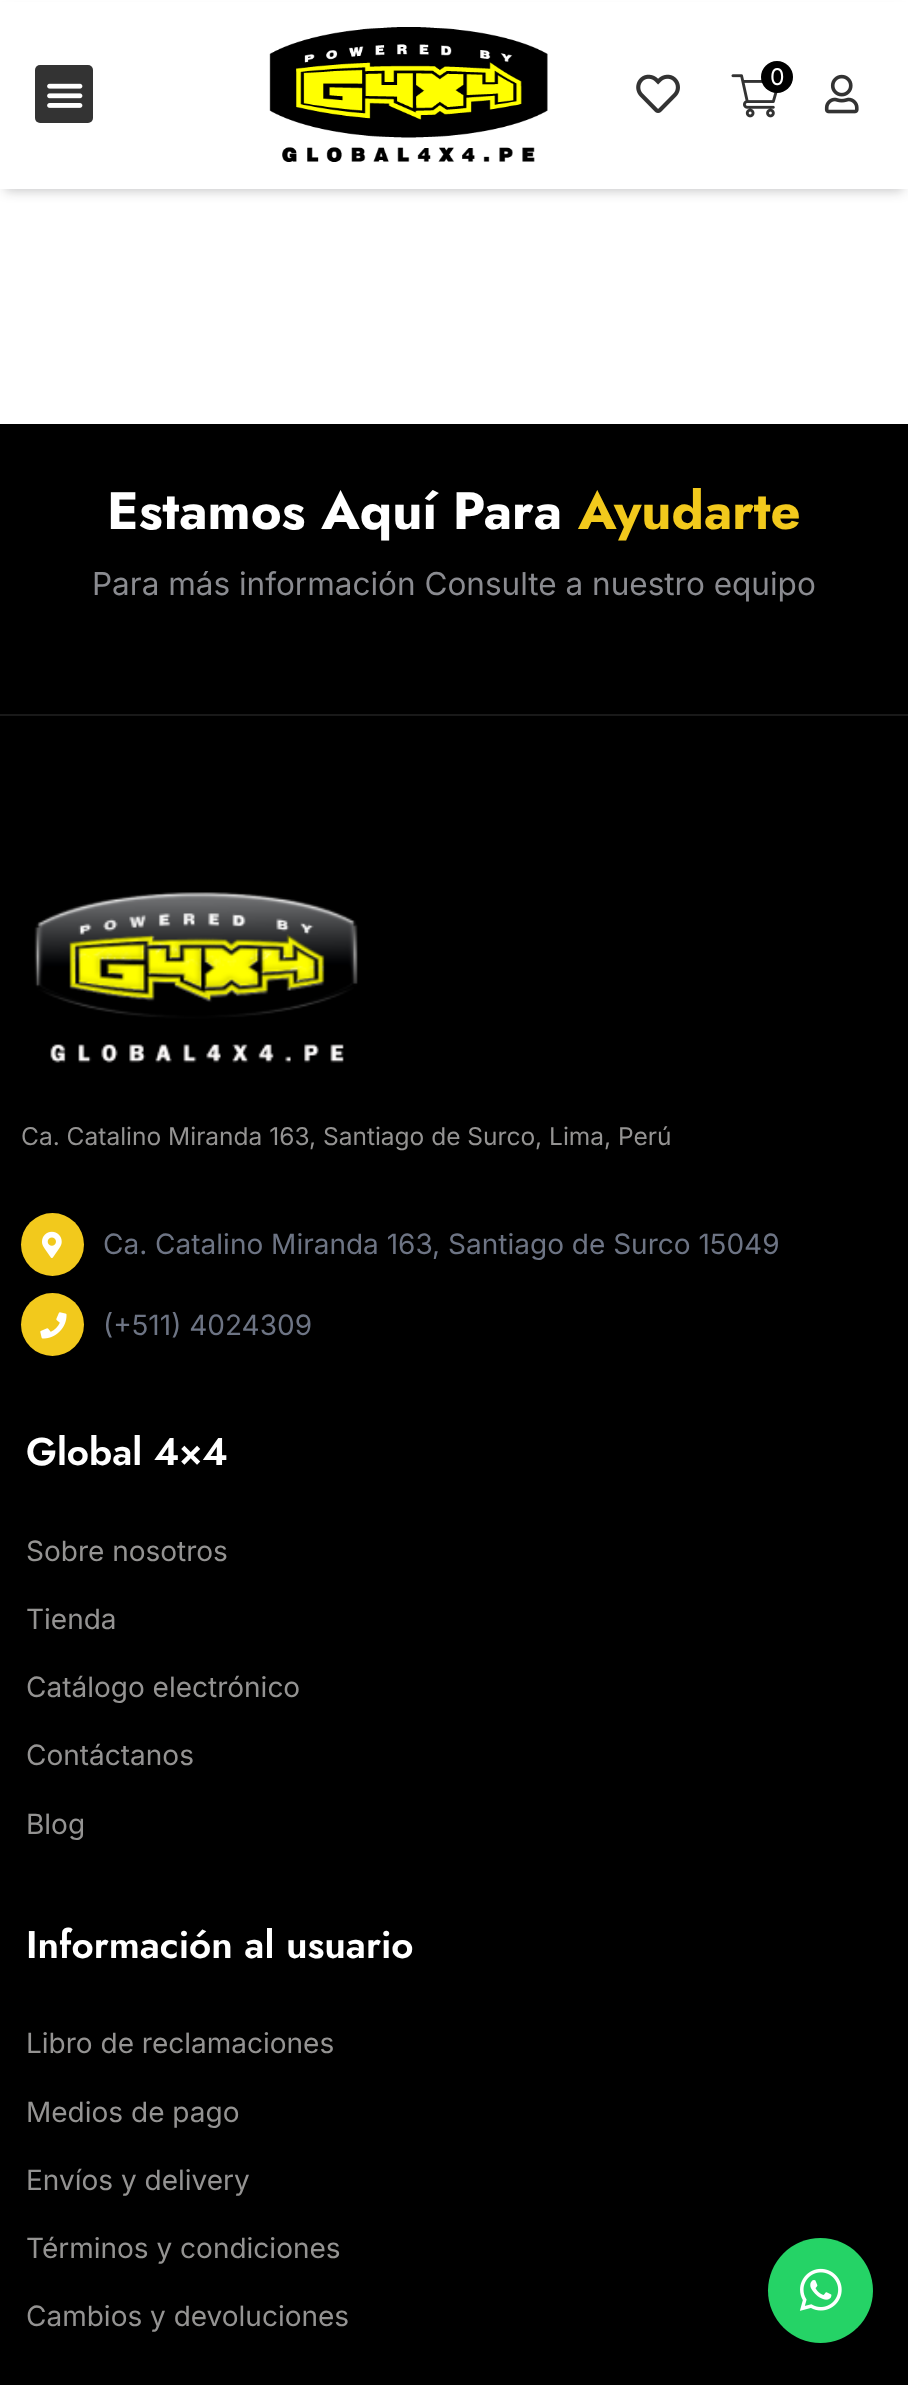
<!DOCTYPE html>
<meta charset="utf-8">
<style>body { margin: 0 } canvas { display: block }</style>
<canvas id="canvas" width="908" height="2385"></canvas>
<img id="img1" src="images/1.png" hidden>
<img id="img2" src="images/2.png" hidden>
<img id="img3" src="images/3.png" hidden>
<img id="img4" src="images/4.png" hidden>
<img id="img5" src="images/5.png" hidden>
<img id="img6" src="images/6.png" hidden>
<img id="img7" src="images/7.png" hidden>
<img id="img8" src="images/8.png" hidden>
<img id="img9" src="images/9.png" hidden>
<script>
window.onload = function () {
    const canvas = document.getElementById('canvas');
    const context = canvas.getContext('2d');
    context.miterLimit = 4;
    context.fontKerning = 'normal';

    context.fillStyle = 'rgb(255, 255, 255)';
    context.fillRect(0, 0, 908, 2385);
    context.fillStyle = 'rgba(20, 22, 27, 0.24)';
    context.filter = 'blur(6px)';
    context.beginPath();
    context.rect(5, 12, 898, 179);
    context.fill();
    context.filter = 'none';
    context.fillStyle = 'rgb(255, 255, 255)';
    context.fillRect(0, 2, 908, 187);
    context.fillStyle = 'rgb(51, 51, 51)';
    context.beginPath();
    context.roundRect(35, 65, 58, 58, 5);
    context.fill();
    context.drawImage(document.getElementById('img1'), 47, 83, 36, 25);
    context.drawImage(document.getElementById('img2'), 269, 27, 279, 135);
    context.drawImage(document.getElementById('img3'), 636, 74, 44, 39);
    context.drawImage(document.getElementById('img4'), 731, 74, 47, 44);
    context.fillStyle = 'rgb(0, 0, 0)';
    context.beginPath();
    context.arc(777, 77, 16, 0, 2 * Math.PI);
    context.fill();
    context.drawImage(document.getElementById('img5'), 824, 74, 35, 40);
    context.fillRect(0, 424, 908, 1961);
    context.fillStyle = 'rgb(25, 25, 25)';
    context.fillRect(0, 714, 908, 2);
    context.drawImage(document.getElementById('img6'), 34, 892, 324, 171);
    context.fillStyle = 'rgb(242, 201, 28)';
    context.beginPath();
    context.arc(52.5, 1244.5, 31.5, 0, 2 * Math.PI);
    context.fill();
    context.drawImage(document.getElementById('img7'), 42, 1231, 20, 27);
    context.beginPath();
    context.arc(52.5, 1324.5, 31.5, 0, 2 * Math.PI);
    context.fill();
    context.drawImage(document.getElementById('img8'), 40, 1312, 27, 27);
    context.fillStyle = 'rgb(37, 211, 102)';
    context.beginPath();
    context.arc(820.5, 2290.5, 52.5, 0, 2 * Math.PI);
    context.fill();
    context.drawImage(document.getElementById('img9'), 799, 2268, 43, 43);
    context.font = '23px Inter';
    context.fillStyle = 'rgb(255, 255, 255)';
    context.fillText('0', 770, 85);
    context.font = 'bold 52.5px Jost';
    context.fillText('Estamos Aquí Para', 107, 529);
    context.fillStyle = 'rgb(242, 201, 28)';
    context.fillText('Ayudarte', 578, 529);
    context.font = '31.5px Inter';
    context.fillStyle = 'rgb(138, 139, 144)';
    context.fillText('Para más información Consulte a nuestro equipo', 92, 595);
    context.font = '24.5px Inter';
    context.fillStyle = 'rgb(148, 147, 146)';
    context.fillText('Ca. Catalino Miranda 163, Santiago de Surco, Lima, Perú', 21, 1145);
    context.font = '28px Inter';
    context.fillStyle = 'rgb(109, 116, 132)';
    context.fillText('Ca. Catalino Miranda 163, Santiago de Surco 15049', 103, 1254);
    context.fillText('(+511) 4024309', 103, 1335);
    context.font = '600 38.5px Jost';
    context.fillStyle = 'rgb(255, 255, 255)';
    context.fillText('Global 4×4', 26, 1465);
    context.font = '28px Inter';
    context.fillStyle = 'rgb(148, 147, 146)';
    context.fillText('Sobre nosotros', 26, 1561);
    context.fillText('Tienda', 26, 1629);
    context.fillText('Catálogo electrónico', 26, 1697);
    context.fillText('Contáctanos', 26, 1765);
    context.fillText('Blog', 26, 1834);
    context.font = '600 38.5px Jost';
    context.fillStyle = 'rgb(255, 255, 255)';
    context.fillText('Información al usuario', 26, 1958);
    context.font = '28px Inter';
    context.fillStyle = 'rgb(148, 147, 146)';
    context.fillText('Libro de reclamaciones', 26, 2053);
    context.fillText('Medios de pago', 26, 2122);
    context.fillText('Envíos y delivery', 26, 2190);
    context.fillText('Términos y condiciones', 26, 2258);
    context.fillText('Cambios y devoluciones', 26, 2326);
};
</script>
